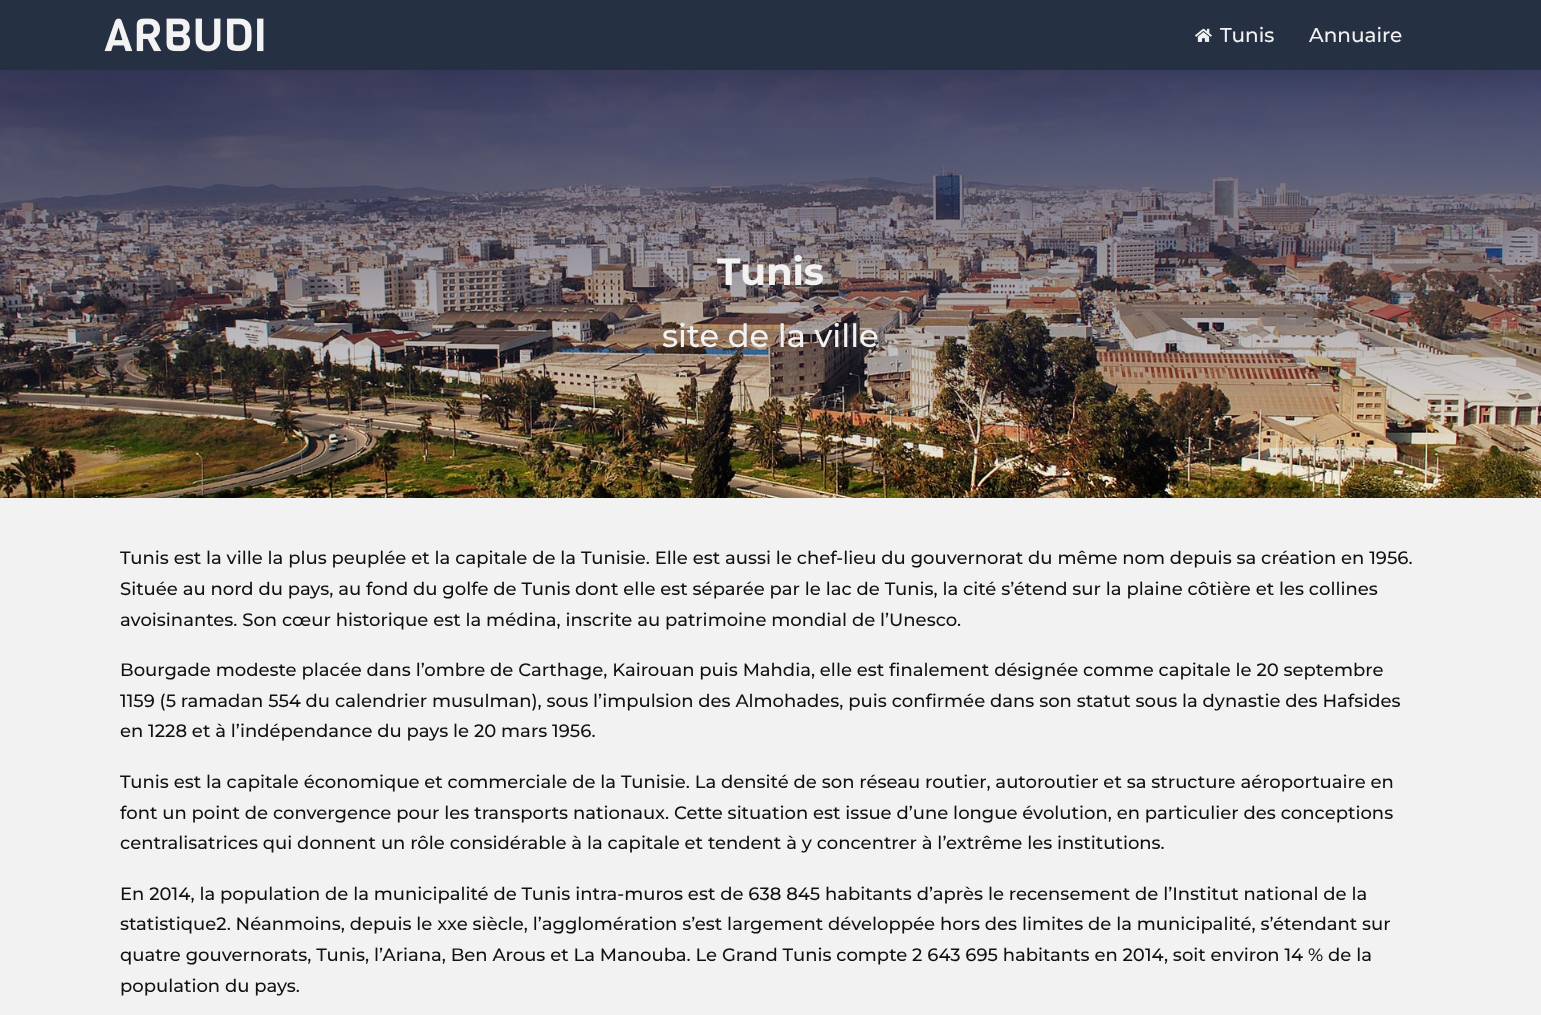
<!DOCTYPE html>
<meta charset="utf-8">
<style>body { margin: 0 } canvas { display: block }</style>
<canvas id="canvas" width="1541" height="1015"></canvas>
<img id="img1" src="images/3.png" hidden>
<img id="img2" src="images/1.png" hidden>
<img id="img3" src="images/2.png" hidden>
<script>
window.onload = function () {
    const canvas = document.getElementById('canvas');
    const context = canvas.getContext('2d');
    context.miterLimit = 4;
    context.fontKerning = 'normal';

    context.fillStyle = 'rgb(242, 242, 242)';
    context.fillRect(0, 0, 1541, 1015);
    context.drawImage(document.getElementById('img1'), 0, 70, 1541, 428);
    context.fillStyle = 'rgba(0, 0, 0, 0.14)';
    context.filter = 'blur(25px)';
    context.beginPath();
    context.rect(2, 12, 1537, 66);
    context.fill();
    context.filter = 'none';
    context.fillStyle = 'rgb(37, 49, 66)';
    context.fillRect(0, 0, 1541, 70);
    context.drawImage(document.getElementById('img2'), 104, 18, 160, 34);
    context.drawImage(document.getElementById('img3'), 1195, 28, 17, 14);
    context.font = '500 20px Montserrat';
    context.fillStyle = 'rgb(242, 242, 242)';
    context.fillText('Tunis', 1220, 42);
    context.fillText('Annuaire', 1309, 42);
    context.font = 'bold 38px Montserrat';
    context.fillText('Tunis', 717, 285);
    context.font = '500 32px Montserrat';
    context.fillText('site de la ville', 662, 347);
    context.font = '500 18px Montserrat';
    context.fillStyle = 'rgb(17, 17, 17)';
    context.fillText('Tunis est la ville la plus peuplée et la capitale de la Tunisie. Elle est aussi le chef-lieu du gouvernorat du même nom depuis sa création en 1956.', 120, 564);
    context.fillText('Située au nord du pays, au fond du golfe de Tunis dont elle est séparée par le lac de Tunis, la cité s’étend sur la plaine côtière et les collines', 120, 595);
    context.fillText('avoisinantes. Son cœur historique est la médina, inscrite au patrimoine mondial de l’Unesco.', 120, 626);
    context.fillText('Bourgade modeste placée dans l’ombre de Carthage, Kairouan puis Mahdia, elle est finalement désignée comme capitale le 20 septembre', 120, 676);
    context.fillText('1159 (5 ramadan 554 du calendrier musulman), sous l’impulsion des Almohades, puis confirmée dans son statut sous la dynastie des Hafsides', 120, 707);
    context.fillText('en 1228 et à l’indépendance du pays le 20 mars 1956.', 120, 737);
    context.fillText('Tunis est la capitale économique et commerciale de la Tunisie. La densité de son réseau routier, autoroutier et sa structure aéroportuaire en', 120, 788);
    context.fillText('font un point de convergence pour les transports nationaux. Cette situation est issue d’une longue évolution, en particulier des conceptions', 120, 819);
    context.fillText('centralisatrices qui donnent un rôle considérable à la capitale et tendent à y concentrer à l’extrême les institutions.', 120, 849);
    context.fillText('En 2014, la population de la municipalité de Tunis intra-muros est de 638 845 habitants d’après le recensement de l’Institut national de la', 120, 900);
    context.fillText('statistique2. Néanmoins, depuis le xxe siècle, l’agglomération s’est largement développée hors des limites de la municipalité, s’étendant sur', 120, 930);
    context.fillText('quatre gouvernorats, Tunis, l’Ariana, Ben Arous et La Manouba. Le Grand Tunis compte 2 643 695 habitants en 2014, soit environ 14 % de la', 120, 961);
    context.fillText('population du pays.', 120, 992);
};
</script>
